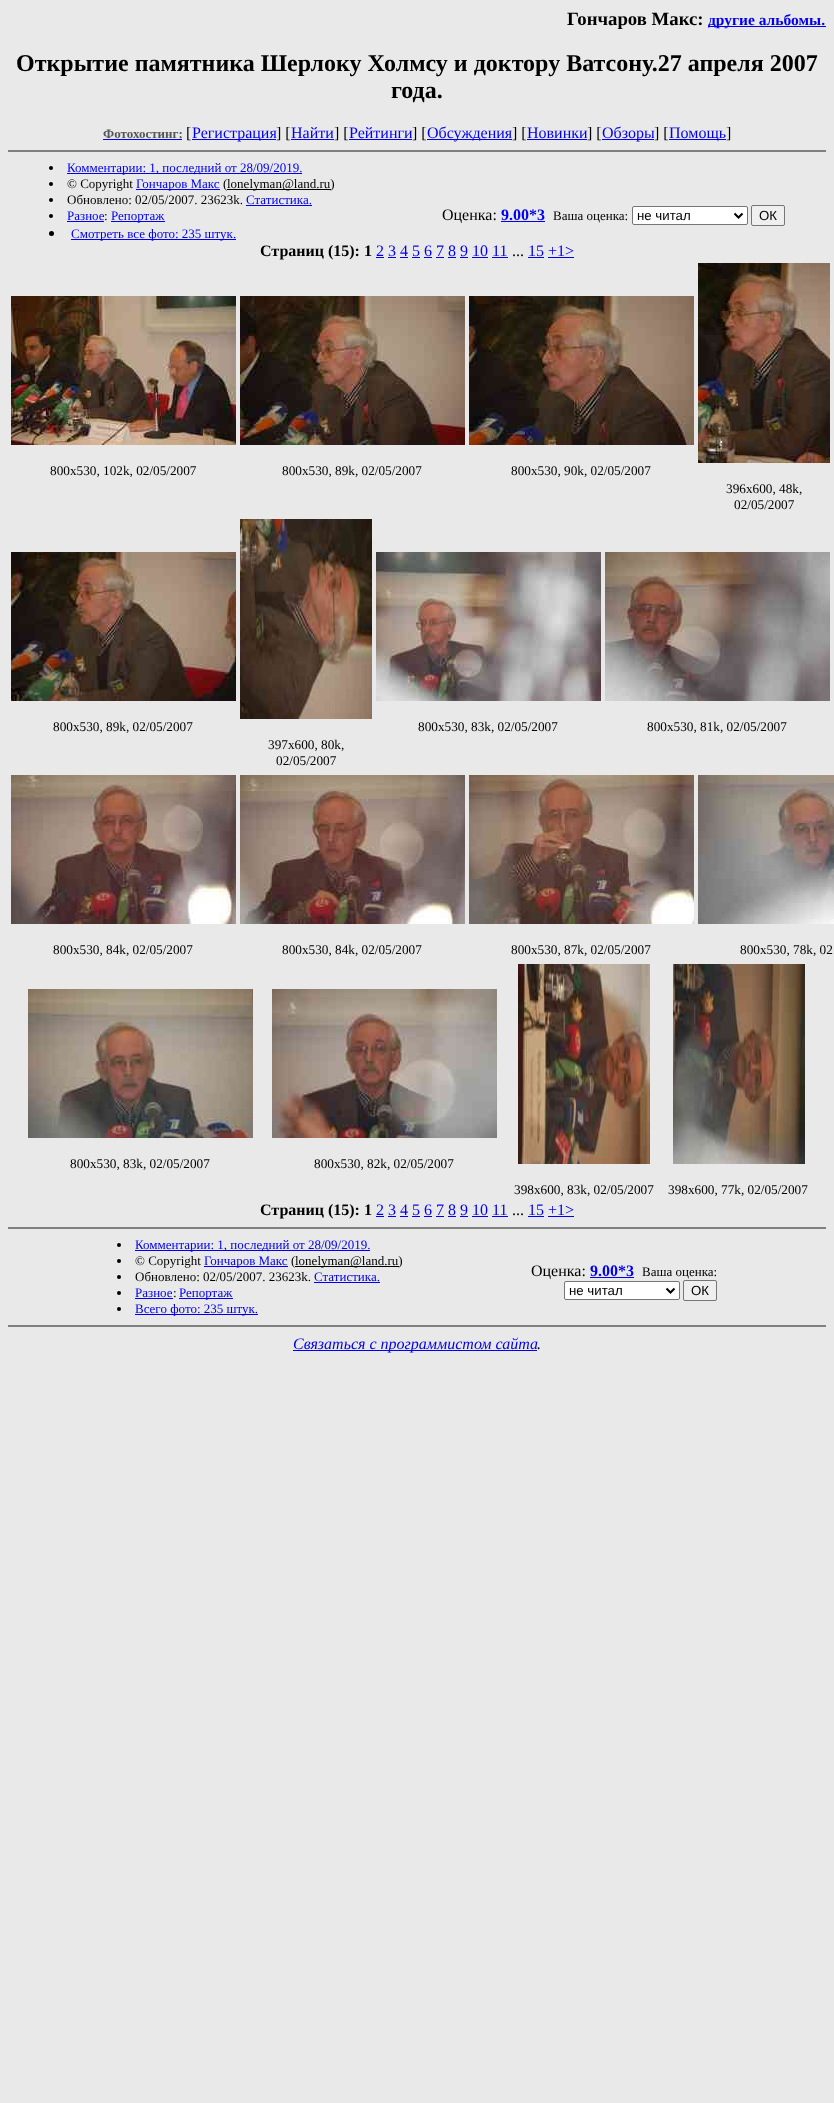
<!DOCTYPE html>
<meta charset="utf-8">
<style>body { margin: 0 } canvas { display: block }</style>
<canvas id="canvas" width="834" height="2103"></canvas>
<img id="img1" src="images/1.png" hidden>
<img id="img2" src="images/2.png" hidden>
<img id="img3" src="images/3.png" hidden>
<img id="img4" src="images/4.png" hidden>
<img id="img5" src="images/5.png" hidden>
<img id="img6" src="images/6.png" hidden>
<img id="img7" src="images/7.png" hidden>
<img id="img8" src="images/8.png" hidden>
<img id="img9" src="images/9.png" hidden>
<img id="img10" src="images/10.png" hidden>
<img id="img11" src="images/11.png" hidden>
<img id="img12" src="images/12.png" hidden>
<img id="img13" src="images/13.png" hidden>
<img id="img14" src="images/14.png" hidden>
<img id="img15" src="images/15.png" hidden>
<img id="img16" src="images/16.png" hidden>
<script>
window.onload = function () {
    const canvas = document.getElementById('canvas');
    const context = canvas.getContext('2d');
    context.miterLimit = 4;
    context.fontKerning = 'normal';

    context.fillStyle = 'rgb(233, 233, 233)';
    context.fillRect(0, 0, 834, 2103);
    context.fillStyle = 'rgb(0, 0, 238)';
    context.fillRect(708, 26, 118, 1);
    context.fillRect(103, 139, 79, 1);
    context.fillRect(192, 139, 84, 1);
    context.fillRect(291, 139, 43, 1);
    context.fillRect(349, 139, 63, 1);
    context.fillRect(427, 139, 85, 1);
    context.fillRect(527, 139, 60, 1);
    context.fillRect(602, 139, 52, 1);
    context.fillRect(669, 139, 57, 1);
    context.fillStyle = 'rgb(128, 128, 128)';
    context.fillRect(8, 150, 818, 2);
    context.fillStyle = 'rgb(0, 0, 0)';
    context.beginPath();
    context.arc(51, 168, 2, 0, 2 * Math.PI);
    context.fill();
    context.fillStyle = 'rgb(0, 0, 238)';
    context.fillRect(67, 173, 235, 1);
    context.fillStyle = 'rgb(0, 0, 0)';
    context.beginPath();
    context.arc(51, 184, 2, 0, 2 * Math.PI);
    context.fill();
    context.fillStyle = 'rgb(0, 0, 238)';
    context.fillRect(136, 189, 84, 1);
    context.fillStyle = 'rgb(0, 0, 0)';
    context.fillRect(227, 189, 104, 1);
    context.beginPath();
    context.arc(51, 200, 2, 0, 2 * Math.PI);
    context.fill();
    context.fillStyle = 'rgb(0, 0, 238)';
    context.fillRect(246, 205, 66, 1);
    context.fillStyle = 'rgb(0, 0, 0)';
    context.beginPath();
    context.arc(51, 216, 2, 0, 2 * Math.PI);
    context.fill();
    context.fillStyle = 'rgb(0, 0, 238)';
    context.fillRect(67, 221, 37, 1);
    context.fillRect(111, 221, 54, 1);
    context.fillStyle = 'rgb(0, 0, 0)';
    context.beginPath();
    context.arc(51.5, 233.5, 2.5, 0, 2 * Math.PI);
    context.fill();
    context.fillStyle = 'rgb(0, 0, 238)';
    context.fillRect(71, 239, 165, 1);
    context.fillRect(501, 221, 44, 1);
    context.fillStyle = 'rgb(255, 255, 255)';
    context.beginPath();
    context.roundRect(632.5, 206.5, 115, 18, 1.5);
    context.fill();
    context.strokeStyle = 'rgb(118, 118, 118)';
    context.stroke();
    context.beginPath();
    context.moveTo(734.5, 213.5);
    context.lineTo(738.5, 217.5);
    context.lineTo(742.5, 213.5);
    context.strokeStyle = 'rgb(0, 0, 0)';
    context.lineWidth = 2;
    context.stroke();
    context.fillStyle = 'rgb(239, 239, 239)';
    context.beginPath();
    context.roundRect(751.5, 205.5, 33, 20, 1.5);
    context.fill();
    context.strokeStyle = 'rgb(118, 118, 118)';
    context.lineWidth = 1;
    context.stroke();
    context.fillStyle = 'rgb(0, 0, 238)';
    context.fillRect(376, 257, 8, 1);
    context.fillRect(528, 257, 16, 1);
    context.fillRect(388, 257, 8, 1);
    context.fillRect(400, 257, 8, 1);
    context.fillRect(412, 257, 8, 1);
    context.fillRect(424, 257, 8, 1);
    context.fillRect(436, 257, 8, 1);
    context.fillRect(448, 257, 8, 1);
    context.fillRect(460, 257, 8, 1);
    context.fillRect(472, 257, 16, 1);
    context.fillRect(492, 257, 16, 1);
    context.fillRect(548, 257, 26, 1);
    context.drawImage(document.getElementById('img1'), 11, 296, 225, 149);
    context.drawImage(document.getElementById('img2'), 240, 296, 225, 149);
    context.drawImage(document.getElementById('img3'), 469, 296, 225, 149);
    context.drawImage(document.getElementById('img4'), 698, 263, 132, 200);
    context.drawImage(document.getElementById('img5'), 11, 552, 225, 149);
    context.drawImage(document.getElementById('img6'), 376, 552, 225, 149);
    context.drawImage(document.getElementById('img7'), 605, 552, 225, 149);
    context.drawImage(document.getElementById('img8'), 240, 519, 132, 200);
    context.drawImage(document.getElementById('img9'), 11, 775, 225, 149);
    context.drawImage(document.getElementById('img10'), 240, 775, 225, 149);
    context.drawImage(document.getElementById('img11'), 469, 775, 225, 149);
    context.drawImage(document.getElementById('img12'), 698, 775, 136, 149);
    context.drawImage(document.getElementById('img13'), 28, 989, 225, 149);
    context.drawImage(document.getElementById('img14'), 272, 989, 225, 149);
    context.drawImage(document.getElementById('img15'), 518, 964, 132, 200);
    context.drawImage(document.getElementById('img16'), 673, 964, 132, 200);
    context.fillRect(376, 1216, 8, 1);
    context.fillRect(528, 1216, 16, 1);
    context.fillRect(388, 1216, 8, 1);
    context.fillRect(400, 1216, 8, 1);
    context.fillRect(412, 1216, 8, 1);
    context.fillRect(424, 1216, 8, 1);
    context.fillRect(436, 1216, 8, 1);
    context.fillRect(448, 1216, 8, 1);
    context.fillRect(460, 1216, 8, 1);
    context.fillRect(472, 1216, 16, 1);
    context.fillRect(492, 1216, 16, 1);
    context.fillRect(548, 1216, 26, 1);
    context.fillStyle = 'rgb(128, 128, 128)';
    context.fillRect(8, 1227, 818, 2);
    context.fillStyle = 'rgb(0, 0, 0)';
    context.beginPath();
    context.arc(119, 1245, 2, 0, 2 * Math.PI);
    context.fill();
    context.fillStyle = 'rgb(0, 0, 238)';
    context.fillRect(135, 1250, 235, 1);
    context.fillStyle = 'rgb(0, 0, 0)';
    context.beginPath();
    context.arc(119, 1261, 2, 0, 2 * Math.PI);
    context.fill();
    context.fillStyle = 'rgb(0, 0, 238)';
    context.fillRect(204, 1266, 84, 1);
    context.fillStyle = 'rgb(0, 0, 0)';
    context.fillRect(295, 1266, 104, 1);
    context.beginPath();
    context.arc(119, 1277, 2, 0, 2 * Math.PI);
    context.fill();
    context.fillStyle = 'rgb(0, 0, 238)';
    context.fillRect(314, 1282, 66, 1);
    context.fillStyle = 'rgb(0, 0, 0)';
    context.beginPath();
    context.arc(119, 1293, 2, 0, 2 * Math.PI);
    context.fill();
    context.fillStyle = 'rgb(0, 0, 238)';
    context.fillRect(135, 1298, 38, 1);
    context.fillRect(179, 1298, 54, 1);
    context.fillStyle = 'rgb(0, 0, 0)';
    context.beginPath();
    context.arc(119, 1309, 2, 0, 2 * Math.PI);
    context.fill();
    context.fillStyle = 'rgb(0, 0, 238)';
    context.fillRect(135, 1314, 123, 1);
    context.fillRect(590, 1277, 44, 1);
    context.fillStyle = 'rgb(255, 255, 255)';
    context.beginPath();
    context.roundRect(564.5, 1281.5, 115, 18, 1.5);
    context.fill();
    context.stroke();
    context.beginPath();
    context.moveTo(666.5, 1288.5);
    context.lineTo(670.5, 1292.5);
    context.lineTo(674.5, 1288.5);
    context.strokeStyle = 'rgb(0, 0, 0)';
    context.lineWidth = 2;
    context.stroke();
    context.fillStyle = 'rgb(239, 239, 239)';
    context.beginPath();
    context.roundRect(683.5, 1280.5, 33, 20, 1.5);
    context.fill();
    context.strokeStyle = 'rgb(118, 118, 118)';
    context.lineWidth = 1;
    context.stroke();
    context.fillStyle = 'rgb(128, 128, 128)';
    context.fillRect(8, 1325, 818, 2);
    context.fillStyle = 'rgb(0, 0, 238)';
    context.fillRect(293, 1350, 244, 1);
    context.font = 'bold 18.75px Liberation Serif';
    context.fillStyle = 'rgb(0, 0, 0)';
    context.fillText('Гончаров Макс:', 567, 25);
    context.font = 'bold 15.5px Liberation Serif';
    context.fillStyle = 'rgb(0, 0, 238)';
    context.fillText('другие альбомы.', 708, 25);
    context.font = 'bold 24px Liberation Serif';
    context.fillStyle = 'rgb(0, 0, 0)';
    context.fillText('Открытие памятника Шерлоку Холмсу и доктору Ватсону.27 апреля 2007', 16, 71);
    context.fillText('года.', 391, 98);
    context.font = 'bold 13px Liberation Serif';
    context.fillStyle = 'rgb(85, 85, 85)';
    context.fillText('Фотохостинг:', 103, 138);
    context.font = '16px Liberation Serif';
    context.fillStyle = 'rgb(0, 0, 0)';
    context.fillText('[', 186, 138);
    context.fillStyle = 'rgb(0, 0, 238)';
    context.fillText('Регистрация', 192, 138);
    context.fillStyle = 'rgb(0, 0, 0)';
    context.fillText('] [', 276, 138);
    context.fillStyle = 'rgb(0, 0, 238)';
    context.fillText('Найти', 291, 138);
    context.fillStyle = 'rgb(0, 0, 0)';
    context.fillText('] [', 334, 138);
    context.fillStyle = 'rgb(0, 0, 238)';
    context.fillText('Рейтинги', 349, 138);
    context.fillStyle = 'rgb(0, 0, 0)';
    context.fillText('] [', 412, 138);
    context.fillStyle = 'rgb(0, 0, 238)';
    context.fillText('Обсуждения', 427, 138);
    context.fillStyle = 'rgb(0, 0, 0)';
    context.fillText('] [', 512, 138);
    context.fillStyle = 'rgb(0, 0, 238)';
    context.fillText('Новинки', 527, 138);
    context.fillStyle = 'rgb(0, 0, 0)';
    context.fillText('] [', 587, 138);
    context.fillStyle = 'rgb(0, 0, 238)';
    context.fillText('Обзоры', 602, 138);
    context.fillStyle = 'rgb(0, 0, 0)';
    context.fillText('] [', 654, 138);
    context.fillStyle = 'rgb(0, 0, 238)';
    context.fillText('Помощь', 669, 138);
    context.fillStyle = 'rgb(0, 0, 0)';
    context.fillText(']', 726, 138);
    context.font = '13px Liberation Serif';
    context.fillStyle = 'rgb(0, 0, 238)';
    context.fillText('Комментарии: 1, последний от 28/09/2019.', 67, 172);
    context.fillStyle = 'rgb(0, 0, 0)';
    context.fillText('© Copyright', 67, 188);
    context.fillStyle = 'rgb(0, 0, 238)';
    context.fillText('Гончаров Макс', 136, 188);
    context.fillStyle = 'rgb(0, 0, 0)';
    context.fillText('(', 223, 188);
    context.fillText('lonelyman@land.ru)', 227, 188);
    context.fillText('Обновлено: 02/05/2007. 23623k.', 67, 204);
    context.fillStyle = 'rgb(0, 0, 238)';
    context.fillText('Статистика.', 246, 204);
    context.fillText('Разное', 67, 220);
    context.fillStyle = 'rgb(0, 0, 0)';
    context.fillText(':', 104, 220);
    context.fillStyle = 'rgb(0, 0, 238)';
    context.fillText('Репортаж', 111, 220);
    context.fillText('Смотреть все фото: 235 штук.', 71, 238);
    context.font = '16px Liberation Serif';
    context.fillStyle = 'rgb(0, 0, 0)';
    context.fillText('Оценка:', 442, 220);
    context.font = 'bold 16px Liberation Serif';
    context.fillStyle = 'rgb(0, 0, 238)';
    context.fillText('9.00*3', 501, 220);
    context.font = '13px Liberation Serif';
    context.fillStyle = 'rgb(0, 0, 0)';
    context.fillText('Ваша оценка:', 553, 220);
    context.font = '13.25px Liberation Sans';
    context.fillText('не читал', 637, 220);
    context.fillText('ОК', 759, 220);
    context.font = 'bold 16px Liberation Serif';
    context.fillText('Страниц (15): 1', 260, 256);
    context.font = '16px Liberation Serif';
    context.fillStyle = 'rgb(0, 0, 238)';
    context.fillText('2 3 4 5 6 7 8 9 10 11', 376, 256);
    context.fillStyle = 'rgb(0, 0, 0)';
    context.fillText('...', 512, 256);
    context.fillStyle = 'rgb(0, 0, 238)';
    context.fillText('15 +1>', 528, 256);
    context.font = '13.25px Liberation Serif';
    context.fillStyle = 'rgb(0, 0, 0)';
    context.fillText('800x530, 102k, 02/05/2007', 50, 475);
    context.fillText('800x530, 89k, 02/05/2007', 282, 475);
    context.fillText('800x530, 90k, 02/05/2007', 511, 475);
    context.fillText('396x600, 48k,', 726, 493);
    context.fillText('02/05/2007', 734, 509);
    context.fillText('800x530, 89k, 02/05/2007', 53, 731);
    context.fillText('800x530, 83k, 02/05/2007', 418, 731);
    context.fillText('800x530, 81k, 02/05/2007', 647, 731);
    context.fillText('397x600, 80k,', 268, 749);
    context.fillText('02/05/2007', 276, 765);
    context.fillText('800x530, 84k, 02/05/2007', 53, 954);
    context.fillText('800x530, 84k, 02/05/2007', 282, 954);
    context.fillText('800x530, 87k, 02/05/2007', 511, 954);
    context.fillText('800x530, 78k, 02', 740, 954);
    context.fillText('800x530, 83k, 02/05/2007', 70, 1168);
    context.fillText('800x530, 82k, 02/05/2007', 314, 1168);
    context.fillText('398x600, 83k, 02/05/2007', 514, 1194);
    context.fillText('398x600, 77k, 02/05/2007', 668, 1194);
    context.font = 'bold 16px Liberation Serif';
    context.fillText('Страниц (15): 1', 260, 1215);
    context.font = '16px Liberation Serif';
    context.fillStyle = 'rgb(0, 0, 238)';
    context.fillText('2 3 4 5 6 7 8 9 10 11', 376, 1215);
    context.fillStyle = 'rgb(0, 0, 0)';
    context.fillText('...', 512, 1215);
    context.fillStyle = 'rgb(0, 0, 238)';
    context.fillText('15 +1>', 528, 1215);
    context.font = '13px Liberation Serif';
    context.fillText('Комментарии: 1, последний от 28/09/2019.', 135, 1249);
    context.fillStyle = 'rgb(0, 0, 0)';
    context.fillText('© Copyright', 135, 1265);
    context.fillStyle = 'rgb(0, 0, 238)';
    context.fillText('Гончаров Макс', 204, 1265);
    context.fillStyle = 'rgb(0, 0, 0)';
    context.fillText('(', 291, 1265);
    context.fillText('lonelyman@land.ru)', 295, 1265);
    context.fillText('Обновлено: 02/05/2007. 23623k.', 135, 1281);
    context.fillStyle = 'rgb(0, 0, 238)';
    context.fillText('Статистика.', 314, 1281);
    context.fillText('Разное', 135, 1297);
    context.fillStyle = 'rgb(0, 0, 0)';
    context.fillText(':', 173, 1297);
    context.fillStyle = 'rgb(0, 0, 238)';
    context.fillText('Репортаж', 179, 1297);
    context.fillText('Всего фото: 235 штук.', 135, 1313);
    context.font = '16px Liberation Serif';
    context.fillStyle = 'rgb(0, 0, 0)';
    context.fillText('Оценка:', 531, 1276);
    context.font = 'bold 16px Liberation Serif';
    context.fillStyle = 'rgb(0, 0, 238)';
    context.fillText('9.00*3', 590, 1276);
    context.font = '13px Liberation Serif';
    context.fillStyle = 'rgb(0, 0, 0)';
    context.fillText('Ваша оценка:', 642, 1276);
    context.font = '13.25px Liberation Sans';
    context.fillText('не читал', 569, 1295);
    context.fillText('ОК', 691, 1295);
    context.font = 'italic 16px Liberation Serif';
    context.fillStyle = 'rgb(0, 0, 238)';
    context.fillText('Связаться с программистом сайта', 293, 1349);
    context.fillStyle = 'rgb(0, 0, 0)';
    context.fillText('.', 537, 1349);
};
</script>
